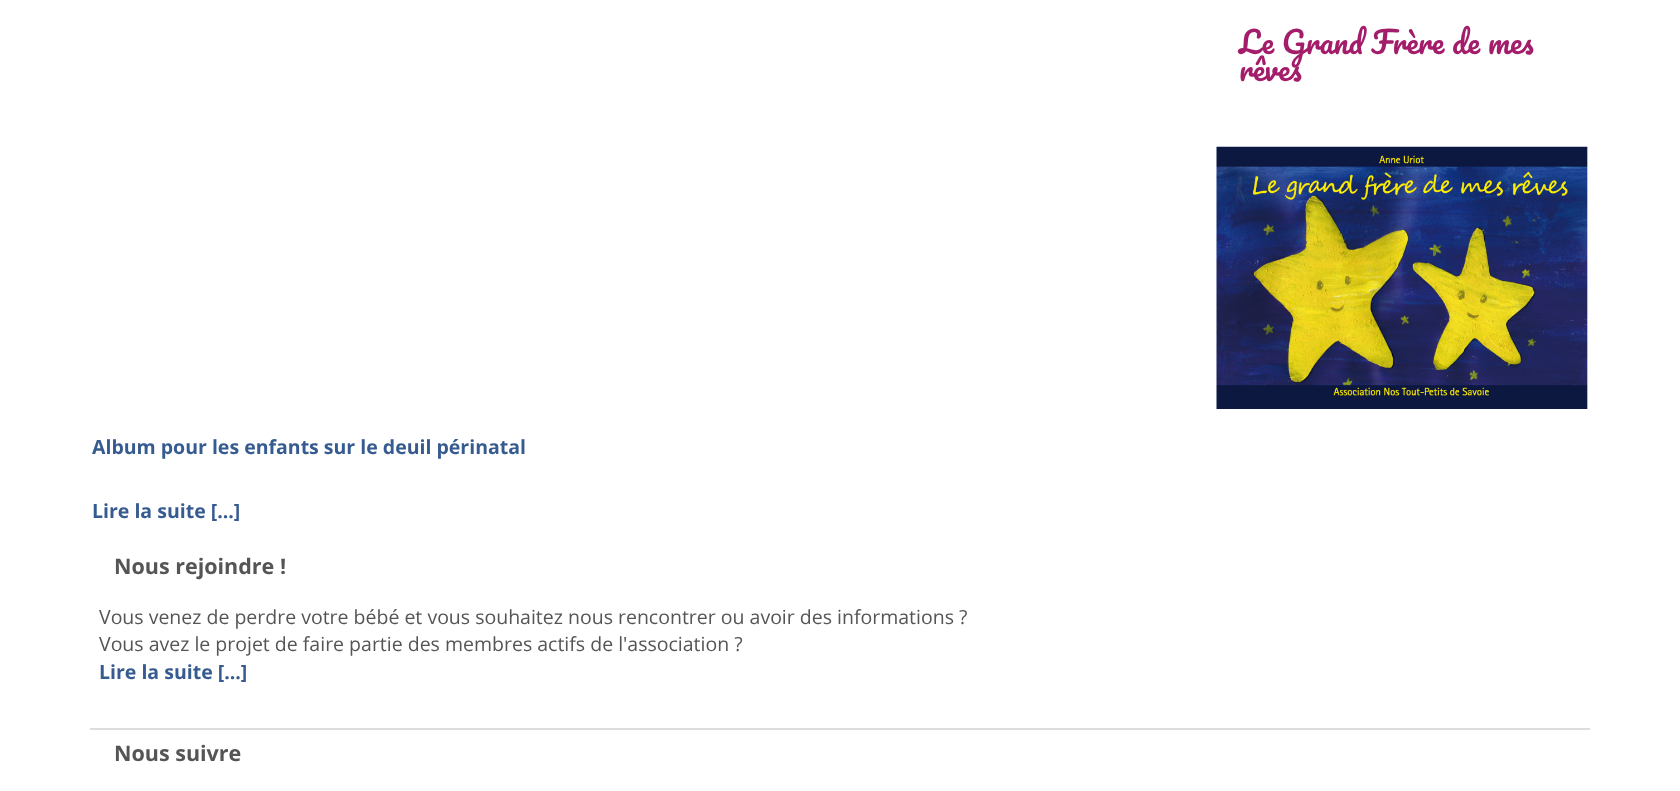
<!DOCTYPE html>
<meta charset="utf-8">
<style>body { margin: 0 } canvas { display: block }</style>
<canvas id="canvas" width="1680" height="791"></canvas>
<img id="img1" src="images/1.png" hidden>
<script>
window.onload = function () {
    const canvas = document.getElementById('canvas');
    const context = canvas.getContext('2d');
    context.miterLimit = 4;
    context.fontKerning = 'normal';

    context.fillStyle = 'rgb(255, 255, 255)';
    context.fillRect(0, 0, 1680, 791);
    context.fillStyle = 'rgb(221, 221, 221)';
    context.fillRect(90, 728, 1500, 2);
    context.drawImage(document.getElementById('img1'), 1216, 146, 372, 263);
    context.font = '30px Pacifico';
    context.fillStyle = 'rgb(163, 29, 106)';
    context.fillText('Le Grand Frère de mes', 1239, 54);
    context.fillText('rêves', 1239, 81);
    context.font = 'bold 19.5px Open Sans';
    context.fillStyle = 'rgb(54, 91, 144)';
    context.fillText('Album pour les enfants sur le deuil périnatal', 92, 454);
    context.fillText('Lire la suite [...]', 92, 518);
    context.font = 'bold 21.5px Open Sans';
    context.fillStyle = 'rgb(85, 85, 85)';
    context.fillText('Nous rejoindre !', 114, 574);
    context.font = '19.5px Open Sans';
    context.fillText('Vous venez de perdre votre bébé et vous souhaitez nous rencontrer ou avoir des informations ?', 99, 624);
    context.fillText('Vous avez le projet de faire partie des membres actifs de l\'association ?', 99, 651);
    context.font = 'bold 19.5px Open Sans';
    context.fillStyle = 'rgb(54, 91, 144)';
    context.fillText('Lire la suite [...]', 99, 679);
    context.font = 'bold 21.5px Open Sans';
    context.fillStyle = 'rgb(85, 85, 85)';
    context.fillText('Nous suivre', 114, 761);
};
</script>
